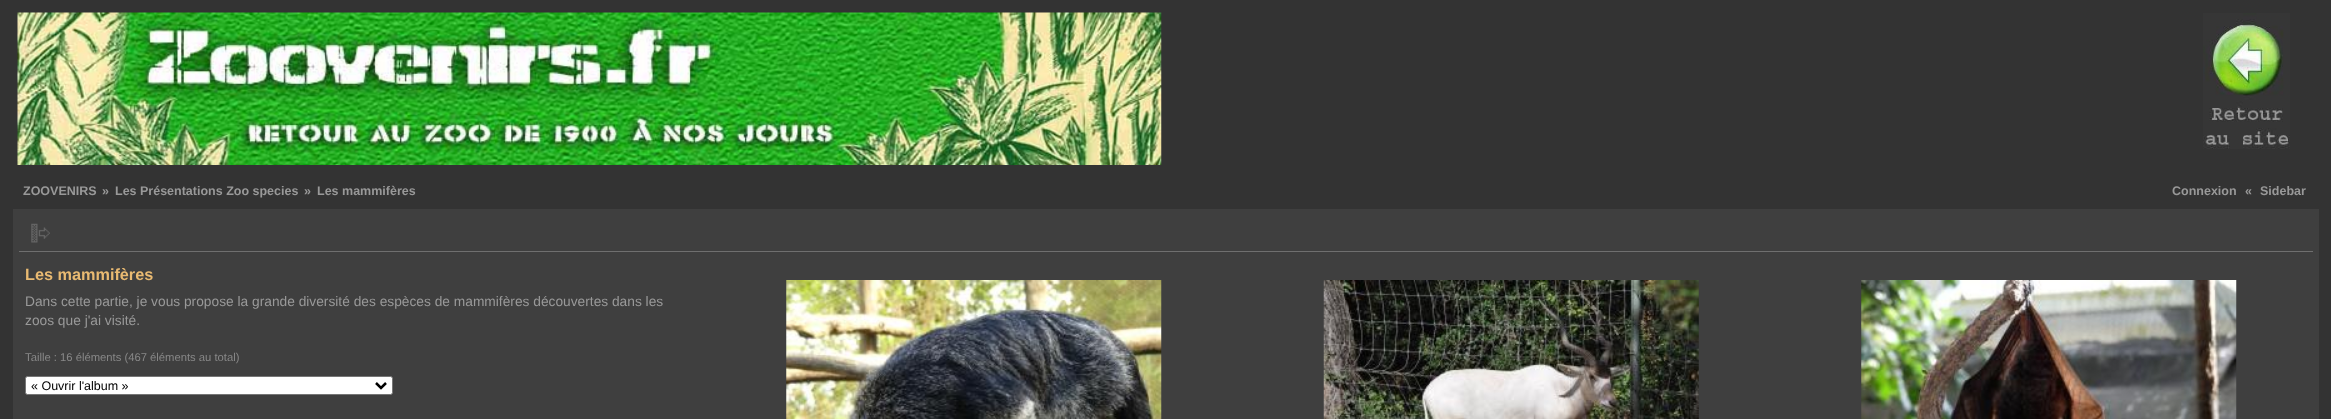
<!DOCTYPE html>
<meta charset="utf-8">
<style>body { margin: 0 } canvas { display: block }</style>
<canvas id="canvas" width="2331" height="419"></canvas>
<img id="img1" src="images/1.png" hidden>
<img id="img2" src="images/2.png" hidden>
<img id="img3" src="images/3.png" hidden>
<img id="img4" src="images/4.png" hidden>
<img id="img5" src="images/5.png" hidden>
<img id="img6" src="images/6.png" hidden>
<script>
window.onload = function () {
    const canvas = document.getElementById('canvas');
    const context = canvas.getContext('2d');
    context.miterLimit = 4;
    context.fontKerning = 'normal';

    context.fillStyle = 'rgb(51, 51, 51)';
    context.fillRect(0, 0, 2331, 419);
    context.drawImage(document.getElementById('img1'), 17, 12, 1145, 153);
    context.drawImage(document.getElementById('img2'), 2203, 13, 87, 136);
    context.fillStyle = 'rgb(63, 63, 63)';
    context.fillRect(13, 209, 2306, 210);
    context.fillStyle = 'rgb(111, 111, 111)';
    context.fillRect(19, 251, 2294, 1);
    context.drawImage(document.getElementById('img3'), 31, 223, 19, 20);
    context.fillStyle = 'rgb(255, 255, 255)';
    context.beginPath();
    context.roundRect(25.5, 376.5, 367, 18, 2);
    context.fill();
    context.strokeStyle = 'rgb(118, 118, 118)';
    context.stroke();
    context.beginPath();
    context.moveTo(376, 383);
    context.lineTo(381, 388);
    context.lineTo(386, 383);
    context.strokeStyle = 'rgb(0, 0, 0)';
    context.lineWidth = 2.5;
    context.stroke();
    context.drawImage(document.getElementById('img4'), 786, 280, 376, 139);
    context.drawImage(document.getElementById('img5'), 1323, 280, 376, 139);
    context.drawImage(document.getElementById('img6'), 1861, 280, 376, 139);
    context.font = 'bold 12.5px Liberation Sans';
    context.fillStyle = 'rgb(153, 153, 153)';
    context.fillText('ZOOVENIRS', 23, 195);
    context.fillText('»', 102, 195);
    context.fillText('Les Présentations Zoo species', 115, 195);
    context.fillText('»', 304, 195);
    context.fillText('Les mammifères', 317, 195);
    context.fillText('Connexion', 2172, 195);
    context.fillText('«', 2245, 195);
    context.fillText('Sidebar', 2260, 195);
    context.font = 'bold 16.25px Liberation Sans';
    context.fillStyle = 'rgb(233, 186, 114)';
    context.fillText('Les mammifères', 25, 280);
    context.font = '13.75px Liberation Sans';
    context.fillStyle = 'rgb(153, 153, 153)';
    context.fillText('Dans cette partie, je vous propose la grande diversité des espèces de mammifères découvertes dans les', 25, 306);
    context.fillText('zoos que j\'ai visité.', 25, 325);
    context.font = '11.25px Liberation Sans';
    context.fillStyle = 'rgb(136, 136, 136)';
    context.fillText('Taille : 16 éléments (467 éléments au total)', 25, 361);
    context.font = '12.5px Liberation Sans';
    context.fillStyle = 'rgb(0, 0, 0)';
    context.fillText('« Ouvrir l\'album »', 31, 390);
};
</script>
